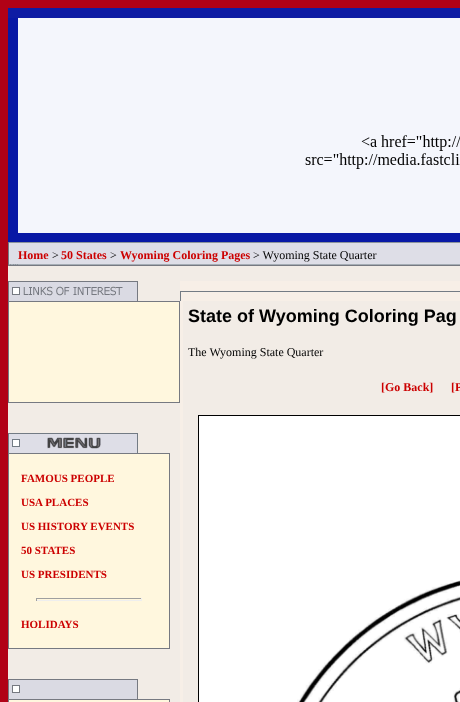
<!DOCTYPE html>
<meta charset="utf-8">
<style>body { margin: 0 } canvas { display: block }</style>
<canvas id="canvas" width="460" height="702"></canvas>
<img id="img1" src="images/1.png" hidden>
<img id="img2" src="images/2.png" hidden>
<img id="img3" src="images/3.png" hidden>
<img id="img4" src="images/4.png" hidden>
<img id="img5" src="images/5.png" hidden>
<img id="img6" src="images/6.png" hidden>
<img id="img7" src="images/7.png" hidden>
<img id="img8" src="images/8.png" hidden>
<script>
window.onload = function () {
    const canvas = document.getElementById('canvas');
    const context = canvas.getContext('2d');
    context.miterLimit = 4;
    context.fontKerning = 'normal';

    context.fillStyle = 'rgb(177, 1, 22)';
    context.fillRect(0, 0, 460, 702);
    context.fillStyle = 'rgb(244, 246, 252)';
    context.fillRect(18, 18, 442, 215);
    context.fillStyle = 'rgb(14, 28, 164)';
    context.fillRect(8, 8, 452, 10);
    context.fillStyle = 'rgb(8, 24, 165)';
    context.fillRect(8, 18, 10, 215);
    context.drawImage(document.getElementById('img1'), 305, 135, 155, 34);
    context.drawImage(document.getElementById('img2'), 8, 233, 10, 32);
    context.drawImage(document.getElementById('img3'), 18, 233, 442, 32);
    context.fillStyle = 'rgb(242, 236, 230)';
    context.fillRect(8, 266, 452, 436);
    context.fillStyle = 'rgb(118, 121, 129)';
    context.fillRect(8, 265, 452, 1);
    context.drawImage(document.getElementById('img4'), 180, 281, 280, 20);
    context.fillStyle = 'rgb(115, 123, 132)';
    context.fillRect(180, 292, 1, 9);
    context.fillStyle = 'rgb(247, 239, 231)';
    context.fillRect(180, 301, 3, 401);
    context.strokeStyle = 'rgb(0, 0, 0)';
    context.strokeRect(198.5, 415.5, 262, 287);
    context.drawImage(document.getElementById('img5'), 199, 416, 261, 286);
    context.drawImage(document.getElementById('img6'), 8, 281, 130, 20);
    context.fillStyle = 'rgb(118, 121, 129)';
    context.fillRect(8, 301, 172, 102);
    context.fillStyle = 'rgb(255, 247, 222)';
    context.fillRect(9, 302, 170, 100);
    context.drawImage(document.getElementById('img7'), 8, 433, 130, 20);
    context.fillStyle = 'rgb(118, 121, 129)';
    context.fillRect(8, 453, 162, 196);
    context.fillStyle = 'rgb(255, 247, 222)';
    context.fillRect(9, 454, 160, 194);
    context.fillStyle = 'rgb(159, 159, 159)';
    context.fillRect(36, 598, 106, 1);
    context.fillStyle = 'rgb(238, 238, 238)';
    context.fillRect(141, 598, 1, 3);
    context.fillRect(36, 600, 106, 1);
    context.fillStyle = 'rgb(159, 159, 159)';
    context.fillRect(36, 598, 1, 3);
    context.drawImage(document.getElementById('img8'), 8, 679, 130, 20);
    context.fillStyle = 'rgb(118, 121, 129)';
    context.fillRect(8, 699, 162, 3);
    context.fillStyle = 'rgb(255, 247, 222)';
    context.fillRect(9, 700, 160, 2);
    context.font = 'bold 12px Liberation Serif';
    context.fillStyle = 'rgb(204, 0, 0)';
    context.fillText('Home', 18, 259);
    context.font = '12px Liberation Serif';
    context.fillStyle = 'rgb(0, 0, 0)';
    context.fillText('>', 52, 259);
    context.font = 'bold 12px Liberation Serif';
    context.fillStyle = 'rgb(204, 0, 0)';
    context.fillText('50 States', 61, 259);
    context.font = '12px Liberation Serif';
    context.fillStyle = 'rgb(0, 0, 0)';
    context.fillText('>', 110, 259);
    context.font = 'bold 12px Liberation Serif';
    context.fillStyle = 'rgb(204, 0, 0)';
    context.fillText('Wyoming Coloring Pages', 120, 259);
    context.font = '12px Liberation Serif';
    context.fillStyle = 'rgb(0, 0, 0)';
    context.fillText('> Wyoming State Quarter', 253, 259);
    context.font = 'bold 18px Liberation Sans';
    context.fillText('State of Wyoming Coloring Pag', 188, 322);
    context.font = '12px Liberation Serif';
    context.fillText('The Wyoming State Quarter', 188, 356);
    context.font = 'bold 12px Liberation Serif';
    context.fillStyle = 'rgb(204, 0, 0)';
    context.fillText('[Go Back]', 381, 391);
    context.fillText('[P', 451, 391);
    context.font = 'bold 11px Liberation Serif';
    context.fillText('FAMOUS PEOPLE', 21, 482);
    context.fillText('USA PLACES', 21, 506);
    context.fillText('US HISTORY EVENTS', 21, 530);
    context.fillText('50 STATES', 21, 554);
    context.fillText('US PRESIDENTS', 21, 578);
    context.fillText('HOLIDAYS', 21, 628);
};
</script>
